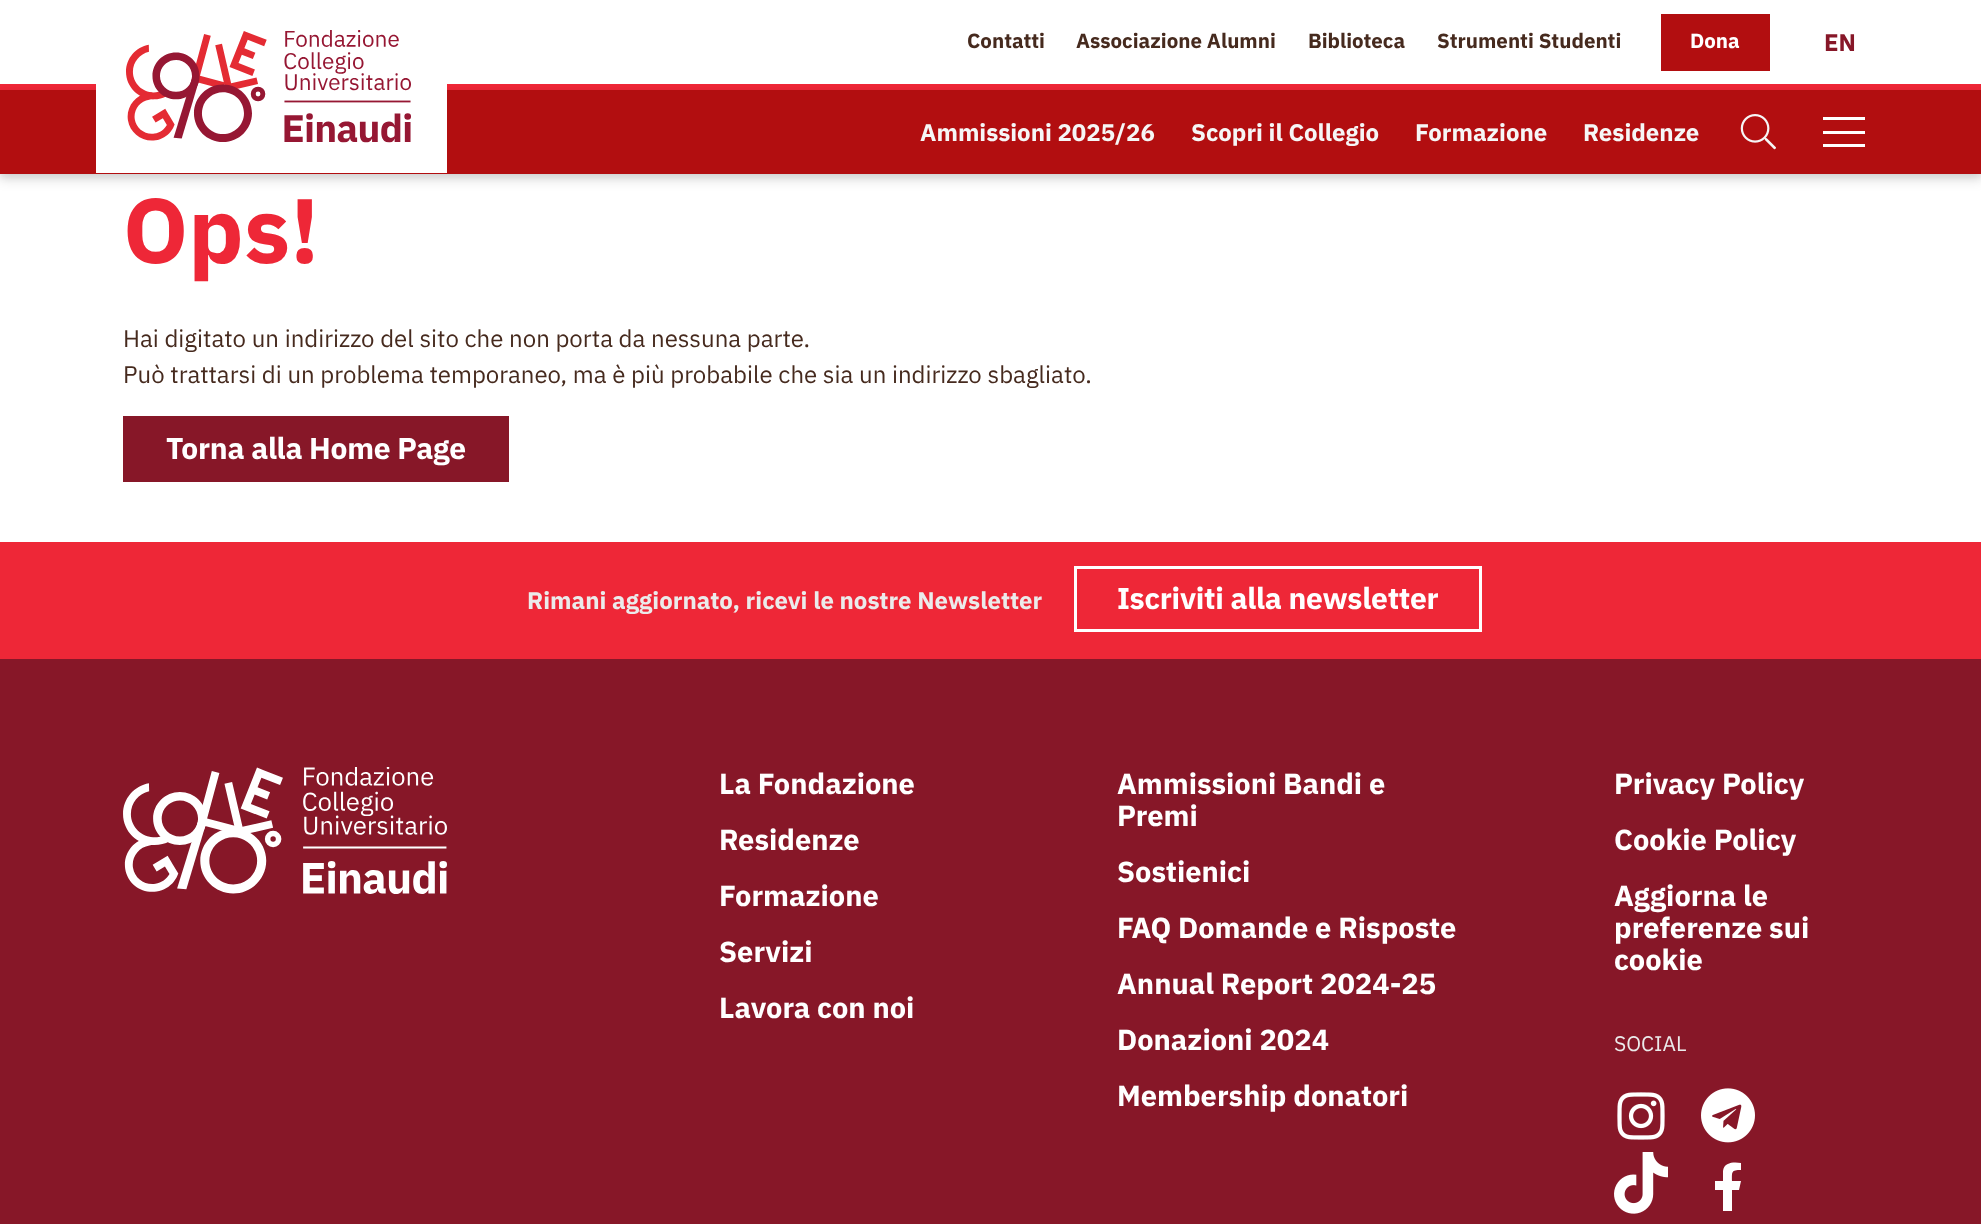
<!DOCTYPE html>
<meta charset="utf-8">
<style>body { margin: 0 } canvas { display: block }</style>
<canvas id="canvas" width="1981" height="1224"></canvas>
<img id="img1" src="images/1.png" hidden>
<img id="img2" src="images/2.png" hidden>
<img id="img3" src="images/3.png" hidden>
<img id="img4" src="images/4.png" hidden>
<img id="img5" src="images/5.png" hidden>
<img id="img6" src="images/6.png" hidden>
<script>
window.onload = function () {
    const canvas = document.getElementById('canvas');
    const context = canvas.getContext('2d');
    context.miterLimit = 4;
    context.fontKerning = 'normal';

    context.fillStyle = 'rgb(255, 255, 255)';
    context.fillRect(0, 0, 1981, 1224);
    context.fillStyle = 'rgb(238, 39, 55)';
    context.fillRect(0, 84, 1981, 6);
    context.fillStyle = 'rgba(0, 0, 0, 0.08)';
    context.filter = 'blur(3px)';
    context.beginPath();
    context.rect(0, 93, 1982, 84);
    context.fill();
    context.filter = 'none';
    context.fillStyle = 'rgba(0, 0, 0, 0.12)';
    context.filter = 'blur(6px)';
    context.beginPath();
    context.rect(0, 96, 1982, 84);
    context.fill();
    context.filter = 'none';
    context.fillStyle = 'rgb(178, 14, 16)';
    context.fillRect(0, 90, 1981, 84);
    context.fillStyle = 'rgb(255, 255, 255)';
    context.fillRect(96, 84, 351, 89);
    context.drawImage(document.getElementById('img1'), 126, 30, 285, 113);
    context.fillStyle = 'rgb(178, 14, 16)';
    context.fillRect(1661, 14, 109, 57);
    context.drawImage(document.getElementById('img2'), 1740, 114, 36, 36);
    context.fillStyle = 'rgb(255, 255, 255)';
    context.fillRect(1823, 131, 42, 3);
    context.fillRect(1823, 117, 42, 3);
    context.fillRect(1823, 144, 42, 3);
    context.fillStyle = 'rgb(135, 23, 40)';
    context.fillRect(123, 416, 386, 66);
    context.fillStyle = 'rgb(238, 39, 55)';
    context.fillRect(0, 542, 1981, 117);
    context.strokeStyle = 'rgb(255, 255, 255)';
    context.lineWidth = 3;
    context.strokeRect(1075.5, 567.5, 405, 63);
    context.fillStyle = 'rgb(135, 23, 40)';
    context.fillRect(0, 659, 1981, 565);
    context.drawImage(document.getElementById('img3'), 123, 767, 324, 127);
    context.drawImage(document.getElementById('img4'), 1617, 1092, 48, 48);
    context.drawImage(document.getElementById('img5'), 1701, 1088, 54, 55);
    context.drawImage(document.getElementById('img6'), 1614, 1152, 54, 62);
    context.fillStyle = 'rgb(255, 255, 255)';
    context.beginPath();
    context.moveTo(1739, 1190);
    context.lineTo(1741, 1181);
    context.lineTo(1732, 1181);
    context.bezierCurveTo(1732, 1172, 1731, 1170, 1741, 1170);
    context.lineTo(1741, 1163);
    context.bezierCurveTo(1734, 1162, 1724, 1162, 1723, 1171);
    context.lineTo(1723, 1181);
    context.lineTo(1715, 1181);
    context.lineTo(1715, 1190);
    context.lineTo(1723, 1190);
    context.lineTo(1723, 1211);
    context.lineTo(1732, 1211);
    context.lineTo(1732, 1190);
    context.closePath();
    context.fill();
    context.font = 'bold 20.5px IBM Plex Sans';
    context.fillStyle = 'rgb(70, 42, 30)';
    context.fillText('Contatti', 967, 48);
    context.fillText('Associazione Alumni', 1076, 48);
    context.fillText('Biblioteca', 1308, 48);
    context.fillText('Strumenti Studenti', 1437, 48);
    context.fillStyle = 'rgb(255, 255, 255)';
    context.fillText('Dona', 1690, 48);
    context.font = 'bold 24px IBM Plex Sans';
    context.fillStyle = 'rgb(135, 23, 40)';
    context.fillText('EN', 1824, 51);
    context.fillStyle = 'rgb(246, 246, 246)';
    context.fillText('Ammissioni 2025/26', 920, 141);
    context.fillText('Scopri il Collegio', 1191, 141);
    context.fillText('Formazione', 1415, 141);
    context.fillText('Residenze', 1583, 141);
    context.font = 'bold 91.5px IBM Plex Sans';
    context.fillStyle = 'rgb(238, 39, 55)';
    context.fillText('Ops!', 123, 263);
    context.font = '24px IBM Plex Sans';
    context.fillStyle = 'rgb(70, 42, 30)';
    context.fillText('Hai digitato un indirizzo del sito che non porta da nessuna parte.', 123, 347);
    context.fillText('Può trattarsi di un problema temporaneo, ma è più probabile che sia un indirizzo sbagliato.', 123, 383);
    context.letterSpacing = '-0.25px';
    context.font = 'bold 30px IBM Plex Sans';
    context.fillStyle = 'rgb(255, 255, 255)';
    context.fillText('Torna alla Home Page', 166, 459);
    context.letterSpacing = '0px';
    context.font = 'bold 24px IBM Plex Sans';
    context.fillStyle = 'rgb(235, 235, 235)';
    context.fillText('Rimani aggiornato, ricevi le nostre Newsletter', 527, 609);
    context.letterSpacing = '-0.25px';
    context.font = 'bold 30px IBM Plex Sans';
    context.fillStyle = 'rgb(255, 255, 255)';
    context.fillText('Iscriviti alla newsletter', 1117, 609);
    context.letterSpacing = '0px';
    context.font = 'bold 29px IBM Plex Sans';
    context.fillText('La Fondazione', 719, 794);
    context.fillText('Residenze', 719, 850);
    context.fillText('Formazione', 719, 906);
    context.fillText('Servizi', 719, 962);
    context.fillText('Lavora con noi', 719, 1018);
    context.fillText('Ammissioni Bandi e', 1117, 794);
    context.fillText('Premi', 1117, 826);
    context.fillText('Sostienici', 1117, 882);
    context.fillText('FAQ Domande e Risposte', 1117, 938);
    context.fillText('Annual Report 2024-25', 1117, 994);
    context.fillText('Donazioni 2024', 1117, 1050);
    context.fillText('Membership donatori', 1117, 1106);
    context.fillText('Privacy Policy', 1614, 794);
    context.fillText('Cookie Policy', 1614, 850);
    context.fillText('Aggiorna le', 1614, 906);
    context.fillText('preferenze sui', 1614, 938);
    context.fillText('cookie', 1614, 970);
    context.font = '21px IBM Plex Sans';
    context.fillStyle = 'rgb(235, 235, 235)';
    context.fillText('SOCIAL', 1614, 1051);
};
</script>
